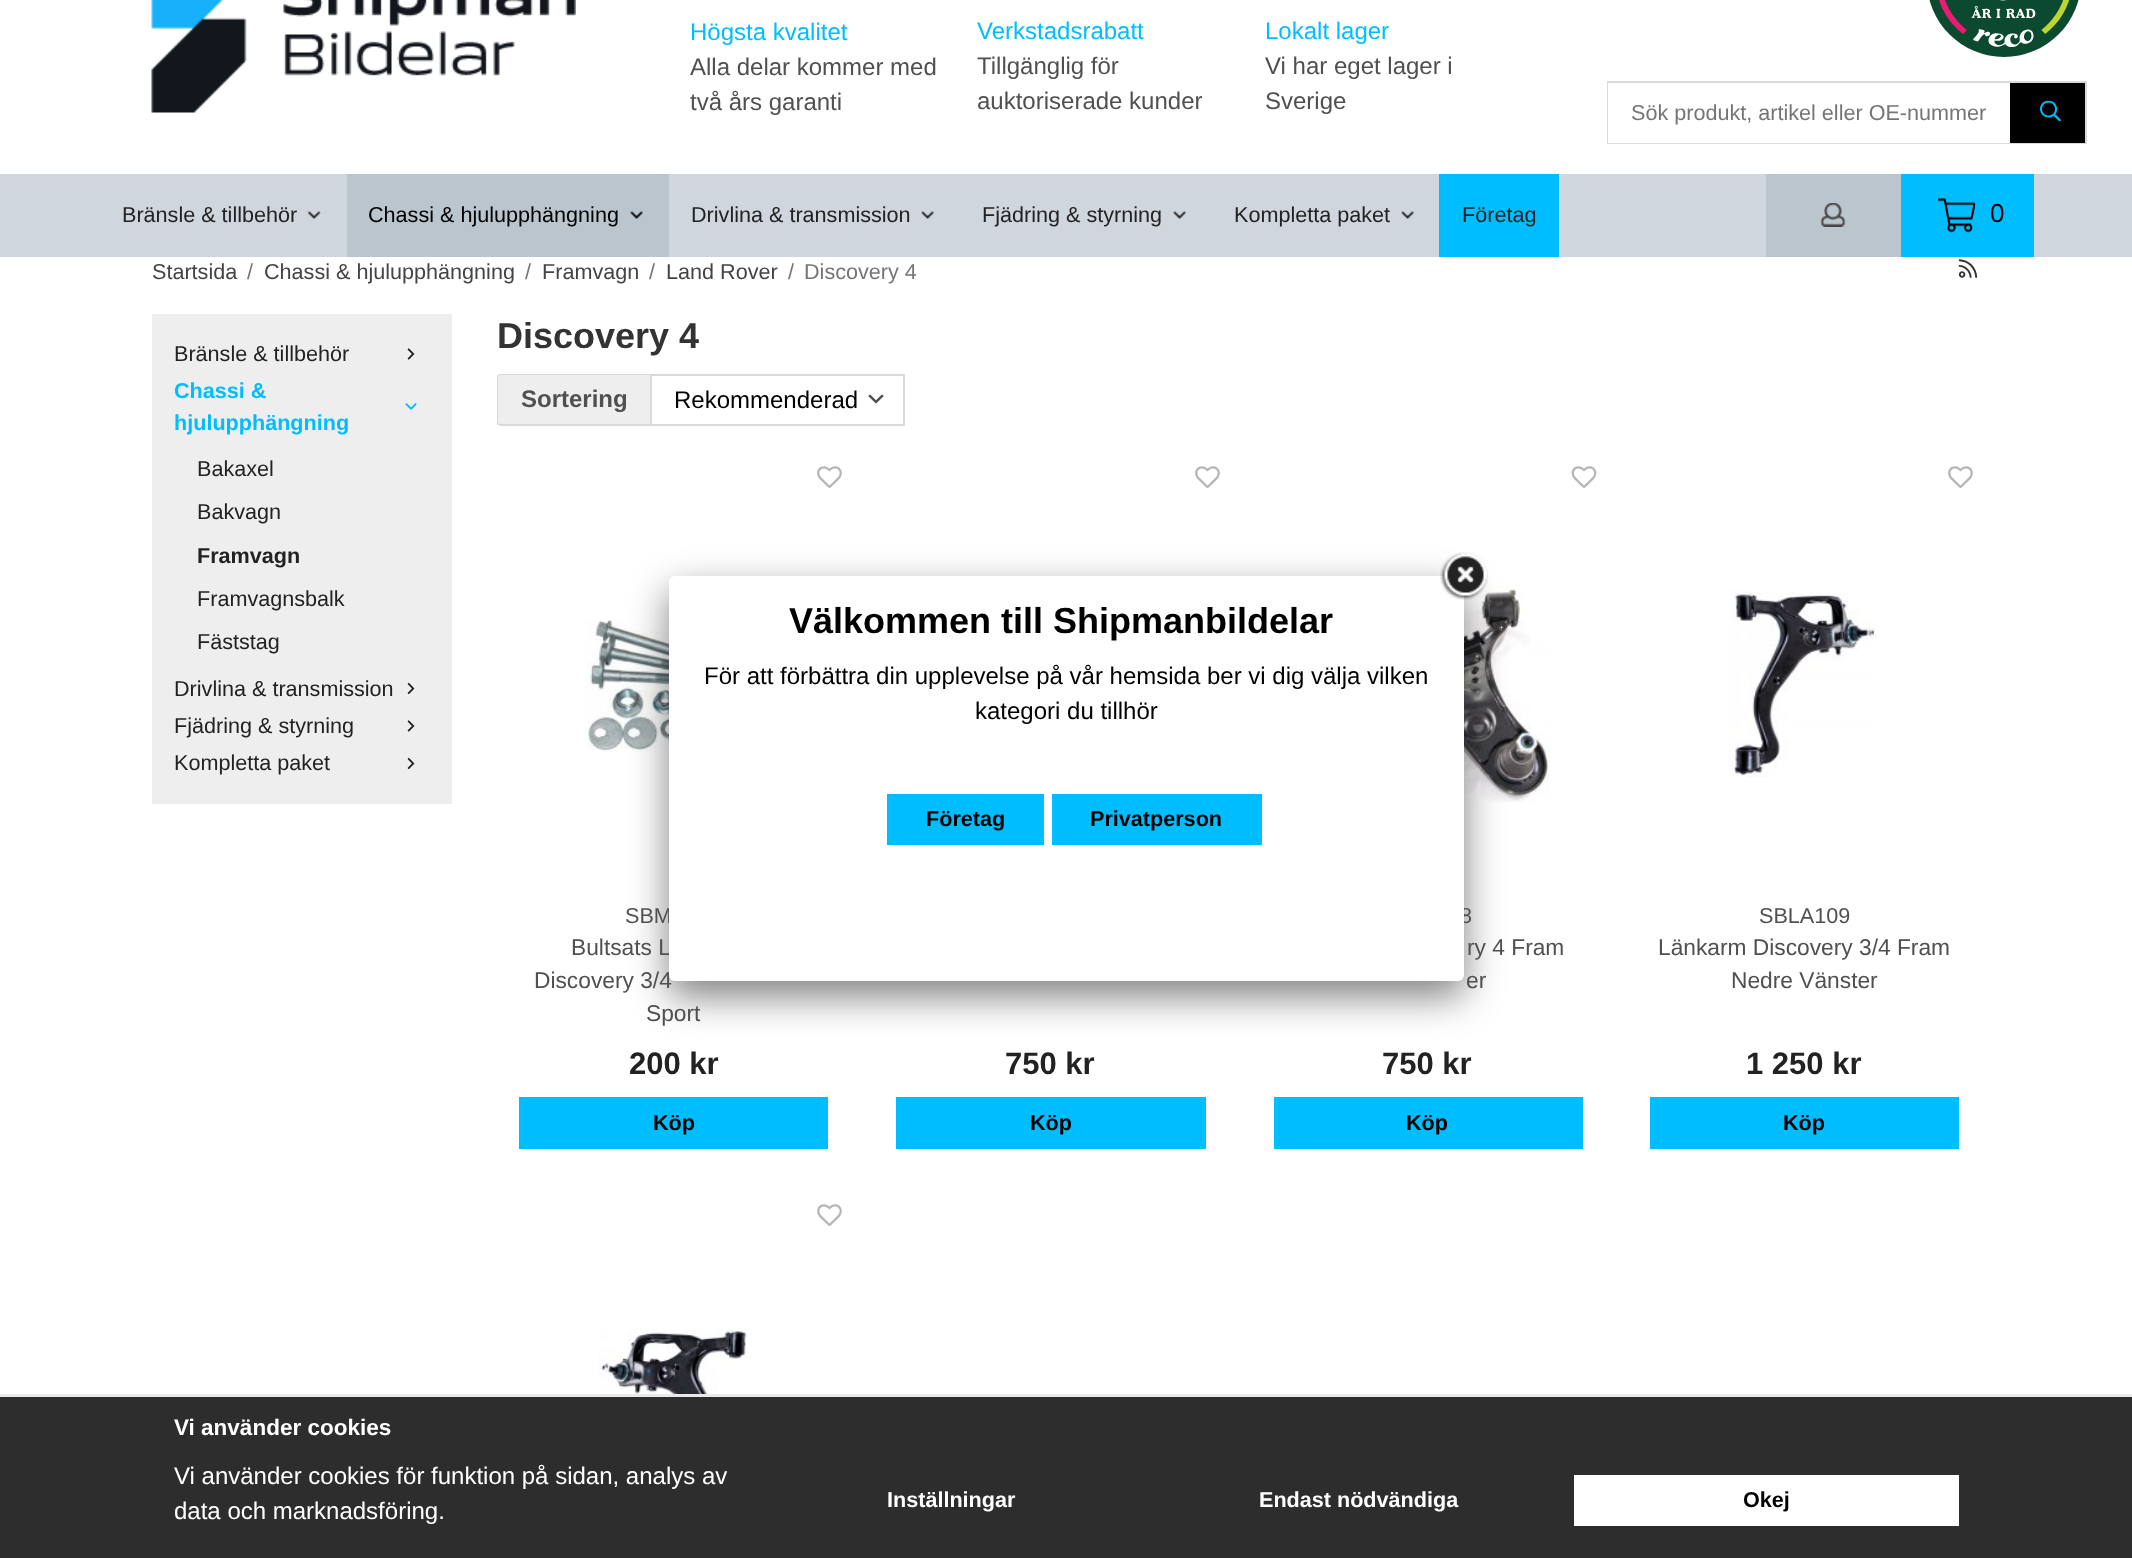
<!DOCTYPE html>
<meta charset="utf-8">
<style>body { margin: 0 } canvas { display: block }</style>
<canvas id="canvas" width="2132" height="1558"></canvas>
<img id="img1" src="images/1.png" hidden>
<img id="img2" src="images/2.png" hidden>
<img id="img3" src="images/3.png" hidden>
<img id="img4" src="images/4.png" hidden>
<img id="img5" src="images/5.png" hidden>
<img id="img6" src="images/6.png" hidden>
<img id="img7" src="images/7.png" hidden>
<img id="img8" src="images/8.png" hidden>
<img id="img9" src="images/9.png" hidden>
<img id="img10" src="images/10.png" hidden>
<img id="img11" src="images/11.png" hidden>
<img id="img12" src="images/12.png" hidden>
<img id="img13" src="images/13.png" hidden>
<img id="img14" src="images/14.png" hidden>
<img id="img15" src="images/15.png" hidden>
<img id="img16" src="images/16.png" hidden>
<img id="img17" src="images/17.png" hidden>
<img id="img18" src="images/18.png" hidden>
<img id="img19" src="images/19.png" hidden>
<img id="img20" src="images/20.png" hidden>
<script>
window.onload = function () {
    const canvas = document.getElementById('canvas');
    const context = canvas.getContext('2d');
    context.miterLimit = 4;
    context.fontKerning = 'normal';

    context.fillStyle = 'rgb(255, 255, 255)';
    context.fillRect(0, 0, 2132, 1558);
    context.drawImage(document.getElementById('img1'), 151, 0, 425, 113);
    context.drawImage(document.getElementById('img2'), 1929, 0, 150, 57);
    context.strokeStyle = 'rgb(218, 218, 218)';
    context.lineWidth = 2;
    context.strokeRect(1608, 82, 478, 61);
    context.fillRect(1608, 83, 402, 60);
    context.fillStyle = 'rgb(0, 0, 0)';
    context.fillRect(2010, 83, 75, 60);
    context.drawImage(document.getElementById('img3'), 2040, 100, 21, 22);
    context.fillStyle = 'rgb(207, 214, 221)';
    context.fillRect(0, 174, 2132, 83);
    context.drawImage(document.getElementById('img4'), 307, 211, 14, 8);
    context.fillStyle = 'rgb(187, 197, 206)';
    context.fillRect(347, 174, 322, 83);
    context.drawImage(document.getElementById('img5'), 630, 211, 13, 8);
    context.drawImage(document.getElementById('img6'), 921, 211, 13, 8);
    context.drawImage(document.getElementById('img6'), 1173, 211, 13, 8);
    context.drawImage(document.getElementById('img6'), 1401, 211, 13, 8);
    context.fillStyle = 'rgb(0, 189, 255)';
    context.fillRect(1439, 174, 120, 83);
    context.fillStyle = 'rgb(187, 197, 206)';
    context.fillRect(1766, 174, 135, 83);
    context.drawImage(document.getElementById('img7'), 1820, 203, 26, 24);
    context.fillStyle = 'rgb(0, 189, 255)';
    context.fillRect(1901, 174, 133, 83);
    context.drawImage(document.getElementById('img8'), 1938, 198, 38, 35);
    context.drawImage(document.getElementById('img9'), 1958, 259, 20, 19);
    context.fillStyle = 'rgb(238, 238, 238)';
    context.fillRect(152, 314, 300, 490);
    context.drawImage(document.getElementById('img10'), 407, 348, 8, 12);
    context.drawImage(document.getElementById('img11'), 405, 403, 12, 7);
    context.drawImage(document.getElementById('img12'), 407, 682, 8, 13);
    context.drawImage(document.getElementById('img10'), 407, 720, 8, 12);
    context.drawImage(document.getElementById('img12'), 407, 757, 8, 13);
    context.beginPath();
    context.roundRect(497, 374, 153, 52, [5, 0, 0, 5]);
    context.fill();
    context.save();
    context.beginPath();
    context.rect(497, 314, 1485, 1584);
    context.clip();
    context.fillStyle = 'rgb(217, 217, 217)';
    context.beginPath();
    context.moveTo(501, 374);
    context.lineTo(650, 374);
    context.lineTo(650, 426);
    context.lineTo(501, 426);
    context.bezierCurveTo(499, 426, 496, 424, 496, 422);
    context.lineTo(496, 378);
    context.bezierCurveTo(496, 376, 499, 374, 501, 374);
    context.closePath();
    context.moveTo(501, 375);
    context.lineTo(650, 375);
    context.lineTo(650, 424);
    context.lineTo(501, 424);
    context.bezierCurveTo(499, 424, 498, 423, 498, 422);
    context.lineTo(498, 378);
    context.bezierCurveTo(498, 376, 499, 375, 501, 375);
    context.closePath();
    context.fill('evenodd');
    context.restore();
    context.strokeStyle = 'rgb(217, 217, 217)';
    context.strokeRect(651, 375, 253, 50);
    context.drawImage(document.getElementById('img13'), 868, 394, 16, 10);
    context.drawImage(document.getElementById('img14'), 817, 466, 25, 22);
    context.drawImage(document.getElementById('img15'), 585, 620, 84, 132);
    context.fillStyle = 'rgb(0, 189, 255)';
    context.fillRect(519, 1097, 309, 52);
    context.drawImage(document.getElementById('img14'), 1195, 466, 25, 22);
    context.fillRect(896, 1097, 310, 52);
    context.drawImage(document.getElementById('img16'), 1571, 466, 26, 22);
    context.drawImage(document.getElementById('img17'), 1464, 585, 86, 218);
    context.fillRect(1274, 1097, 309, 52);
    context.drawImage(document.getElementById('img14'), 1948, 466, 25, 22);
    context.drawImage(document.getElementById('img18'), 1729, 591, 147, 186);
    context.fillRect(1650, 1097, 309, 52);
    context.drawImage(document.getElementById('img14'), 817, 1204, 25, 22);
    context.drawImage(document.getElementById('img19'), 598, 1329, 149, 65);
    context.fillStyle = 'rgba(0, 0, 0, 0.5)';
    context.filter = 'blur(19px)';
    context.beginPath();
    context.roundRect(669, 591, 795, 405, 6);
    context.fill();
    context.filter = 'none';
    context.fillStyle = 'rgb(45, 45, 45)';
    context.fillRect(0, 1397, 2132, 161);
    context.fillStyle = 'rgb(233, 233, 233)';
    context.fillRect(0, 1394, 2132, 3);
    context.fillStyle = 'rgb(255, 255, 255)';
    context.fillRect(1574, 1475, 385, 51);
    context.font = '24px Liberation Sans';
    context.fillStyle = 'rgb(0, 189, 255)';
    context.fillText('Högsta kvalitet', 690, 40);
    context.fillStyle = 'rgb(80, 80, 80)';
    context.fillText('Alla delar kommer med', 690, 75);
    context.fillText('två års garanti', 690, 110);
    context.fillStyle = 'rgb(0, 189, 255)';
    context.fillText('Verkstadsrabatt', 977, 39);
    context.fillStyle = 'rgb(80, 80, 80)';
    context.fillText('Tillgänglig för', 977, 74);
    context.fillText('auktoriserade kunder', 977, 109);
    context.fillStyle = 'rgb(0, 189, 255)';
    context.fillText('Lokalt lager', 1265, 39);
    context.fillStyle = 'rgb(80, 80, 80)';
    context.fillText('Vi har eget lager i', 1265, 74);
    context.fillText('Sverige', 1265, 109);
    context.font = '21.6px Liberation Sans';
    context.fillStyle = 'rgb(117, 117, 117)';
    context.fillText('Sök produkt, artikel eller OE-nummer', 1631, 120);
    context.fillStyle = 'rgb(34, 34, 34)';
    context.fillText('Bränsle & tillbehör', 122, 222);
    context.fillStyle = 'rgb(0, 0, 0)';
    context.fillText('Chassi & hjulupphängning', 368, 222);
    context.fillStyle = 'rgb(34, 34, 34)';
    context.fillText('Drivlina & transmission', 691, 222);
    context.fillText('Fjädring & styrning', 982, 222);
    context.fillText('Kompletta paket', 1234, 222);
    context.fillText('Företag', 1462, 222);
    context.font = '26px Liberation Sans';
    context.fillStyle = 'rgb(0, 0, 0)';
    context.fillText('0', 1990, 222);
    context.font = '21.6px Liberation Sans';
    context.fillStyle = 'rgb(68, 68, 68)';
    context.fillText('Startsida', 152, 279);
    context.fillStyle = 'rgb(117, 117, 117)';
    context.fillText('/', 247, 279);
    context.fillStyle = 'rgb(68, 68, 68)';
    context.fillText('Chassi & hjulupphängning', 264, 279);
    context.fillStyle = 'rgb(117, 117, 117)';
    context.fillText('/', 525, 279);
    context.fillStyle = 'rgb(68, 68, 68)';
    context.fillText('Framvagn', 542, 279);
    context.fillStyle = 'rgb(117, 117, 117)';
    context.fillText('/', 649, 279);
    context.fillStyle = 'rgb(68, 68, 68)';
    context.fillText('Land Rover', 666, 279);
    context.fillStyle = 'rgb(117, 117, 117)';
    context.fillText('/', 788, 279);
    context.fillText('Discovery 4', 804, 279);
    context.fillStyle = 'rgb(34, 34, 34)';
    context.fillText('Bränsle & tillbehör', 174, 361);
    context.font = 'bold 21.6px Liberation Sans';
    context.fillStyle = 'rgb(0, 189, 255)';
    context.fillText('Chassi &', 174, 398);
    context.fillText('hjulupphängning', 174, 430);
    context.font = '21.6px Liberation Sans';
    context.fillStyle = 'rgb(34, 34, 34)';
    context.fillText('Bakaxel', 197, 476);
    context.fillText('Bakvagn', 197, 519);
    context.font = 'bold 21.6px Liberation Sans';
    context.fillText('Framvagn', 197, 563);
    context.font = '21.6px Liberation Sans';
    context.fillText('Framvagnsbalk', 197, 606);
    context.fillText('Fäststag', 197, 649);
    context.fillText('Drivlina & transmission', 174, 696);
    context.fillText('Fjädring & styrning', 174, 733);
    context.fillText('Kompletta paket', 174, 770);
    context.font = 'bold 36px Liberation Sans';
    context.fillStyle = 'rgb(51, 51, 51)';
    context.fillText('Discovery 4', 497, 348);
    context.font = 'bold 24px Liberation Sans';
    context.fillStyle = 'rgb(80, 80, 80)';
    context.fillText('Sortering', 521, 407);
    context.font = '24px Liberation Sans';
    context.fillStyle = 'rgb(0, 0, 0)';
    context.fillText('Rekommenderad', 674, 408);
    context.font = '21.6px Liberation Sans';
    context.fillStyle = 'rgb(80, 80, 80)';
    context.fillText('SBM', 625, 923);
    context.font = '22.75px Liberation Sans';
    context.fillText('Bultsats L', 571, 955);
    context.fillText('Discovery 3/4', 534, 988);
    context.fillText('Sport', 646, 1021);
    context.font = 'bold 31px Liberation Sans';
    context.fillStyle = 'rgb(34, 34, 34)';
    context.fillText('200 kr', 629, 1074);
    context.font = 'bold 21.6px Liberation Sans';
    context.fillStyle = 'rgb(0, 0, 0)';
    context.fillText('Köp', 653, 1130);
    context.font = 'bold 31px Liberation Sans';
    context.fillStyle = 'rgb(34, 34, 34)';
    context.fillText('750 kr', 1005, 1074);
    context.font = 'bold 21.6px Liberation Sans';
    context.fillStyle = 'rgb(0, 0, 0)';
    context.fillText('Köp', 1030, 1130);
    context.font = '21.6px Liberation Sans';
    context.fillStyle = 'rgb(80, 80, 80)';
    context.fillText('8', 1460, 923);
    context.font = '22.75px Liberation Sans';
    context.fillText('ry 4 Fram', 1467, 955);
    context.fillText('er', 1466, 988);
    context.font = 'bold 31px Liberation Sans';
    context.fillStyle = 'rgb(34, 34, 34)';
    context.fillText('750 kr', 1382, 1074);
    context.font = 'bold 21.6px Liberation Sans';
    context.fillStyle = 'rgb(0, 0, 0)';
    context.fillText('Köp', 1406, 1130);
    context.font = '21.6px Liberation Sans';
    context.fillStyle = 'rgb(80, 80, 80)';
    context.fillText('SBLA109', 1759, 923);
    context.font = '22.75px Liberation Sans';
    context.fillText('Länkarm Discovery 3/4 Fram', 1658, 955);
    context.fillText('Nedre Vänster', 1731, 988);
    context.font = 'bold 31px Liberation Sans';
    context.fillStyle = 'rgb(34, 34, 34)';
    context.fillText('1 250 kr', 1746, 1074);
    context.font = 'bold 21.6px Liberation Sans';
    context.fillStyle = 'rgb(0, 0, 0)';
    context.fillText('Köp', 1783, 1130);
    context.fillStyle = 'rgb(255, 255, 255)';
    context.beginPath();
    context.roundRect(669, 576, 795, 405, 6);
    context.fill();
    context.drawImage(document.getElementById('img20'), 1440, 552, 48, 48);
    context.font = 'bold 36px Liberation Sans';
    context.fillStyle = 'rgb(0, 0, 0)';
    context.fillText('Välkommen till Shipmanbildelar', 789, 633);
    context.font = '24px Liberation Sans';
    context.fillText('För att förbättra din upplevelse på vår hemsida ber vi dig välja vilken', 704, 684);
    context.fillText('kategori du tillhör', 975, 719);
    context.fillStyle = 'rgb(0, 189, 255)';
    context.fillRect(887, 794, 157, 51);
    context.font = 'bold 21.6px Liberation Sans';
    context.fillStyle = 'rgb(0, 0, 0)';
    context.fillText('Företag', 926, 826);
    context.fillStyle = 'rgb(0, 189, 255)';
    context.fillRect(1052, 794, 210, 51);
    context.fillStyle = 'rgb(0, 0, 0)';
    context.fillText('Privatperson', 1090, 826);
    context.font = 'bold 22.5px Liberation Sans';
    context.fillStyle = 'rgb(255, 255, 255)';
    context.fillText('Vi använder cookies', 174, 1435);
    context.font = '24px Liberation Sans';
    context.fillText('Vi använder cookies för funktion på sidan, analys av', 174, 1484);
    context.fillText('data och marknadsföring.', 174, 1519);
    context.font = 'bold 21.6px Liberation Sans';
    context.fillText('Inställningar', 887, 1507);
    context.fillText('Endast nödvändiga', 1259, 1507);
    context.fillStyle = 'rgb(0, 0, 0)';
    context.fillText('Okej', 1743, 1507);
};
</script>
